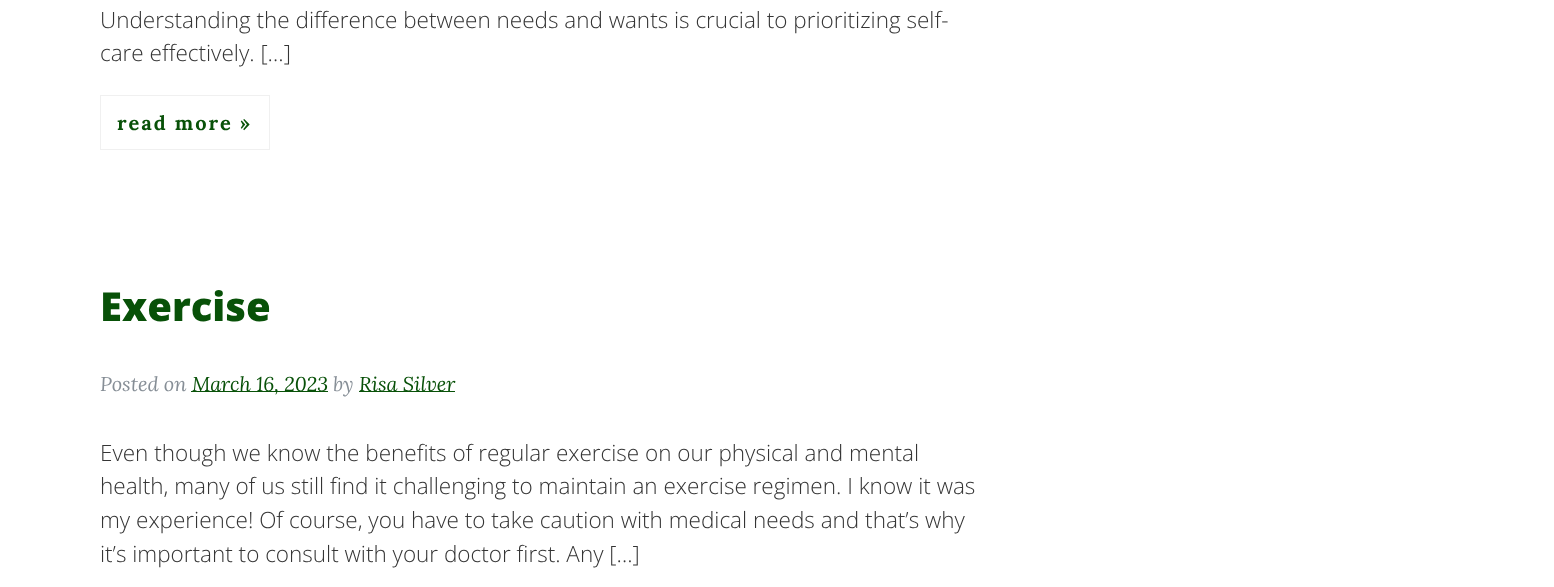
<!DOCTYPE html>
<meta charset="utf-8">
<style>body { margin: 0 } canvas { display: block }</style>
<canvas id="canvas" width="1554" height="587"></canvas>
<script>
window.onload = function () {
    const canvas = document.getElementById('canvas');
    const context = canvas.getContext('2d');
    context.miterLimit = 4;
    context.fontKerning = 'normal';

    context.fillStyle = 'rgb(255, 255, 255)';
    context.fillRect(0, 0, 1554, 587);
    context.fillStyle = 'rgb(240, 240, 240)';
    context.fillRect(100, 95, 170, 1);
    context.fillRect(100, 149, 140, 1);
    context.fillRect(100, 95, 1, 55);
    context.fillRect(269, 95, 1, 55);
    context.fillRect(240, 149, 30, 1);
    context.fillStyle = 'rgb(8, 81, 8)';
    context.fillRect(191, 391, 137, 1);
    context.fillRect(359, 391, 96, 1);
    context.font = '300 22.5px Open Sans';
    context.fillStyle = 'rgb(53, 53, 53)';
    context.fillText('Understanding the difference between needs and wants is crucial to prioritizing self-', 100, 28);
    context.fillText('care effectively. […]', 100, 61);
    context.letterSpacing = '2px';
    context.font = 'bold 20px Lora';
    context.fillStyle = 'rgb(8, 81, 8)';
    context.fillText('read more »', 117, 130);
    context.letterSpacing = '0px';
    context.font = '800 40px Open Sans';
    context.fillText('Exercise', 100, 321);
    context.font = 'italic 20px Lora';
    context.fillStyle = 'rgb(134, 142, 150)';
    context.fillText('Posted on', 100, 391);
    context.fillStyle = 'rgb(8, 81, 8)';
    context.fillText('March 16, 2023', 192, 391);
    context.fillStyle = 'rgb(134, 142, 150)';
    context.fillText('by', 333, 391);
    context.fillStyle = 'rgb(8, 81, 8)';
    context.fillText('Risa Silver', 359, 391);
    context.font = '300 22.5px Open Sans';
    context.fillStyle = 'rgb(53, 53, 53)';
    context.fillText('Even though we know the benefits of regular exercise on our physical and mental', 100, 461);
    context.fillText('health, many of us still find it challenging to maintain an exercise regimen. I know it was', 100, 494);
    context.fillText('my experience! Of course, you have to take caution with medical needs and that’s why', 100, 528);
    context.fillText('it’s important to consult with your doctor first. Any […]', 100, 562);
};
</script>
